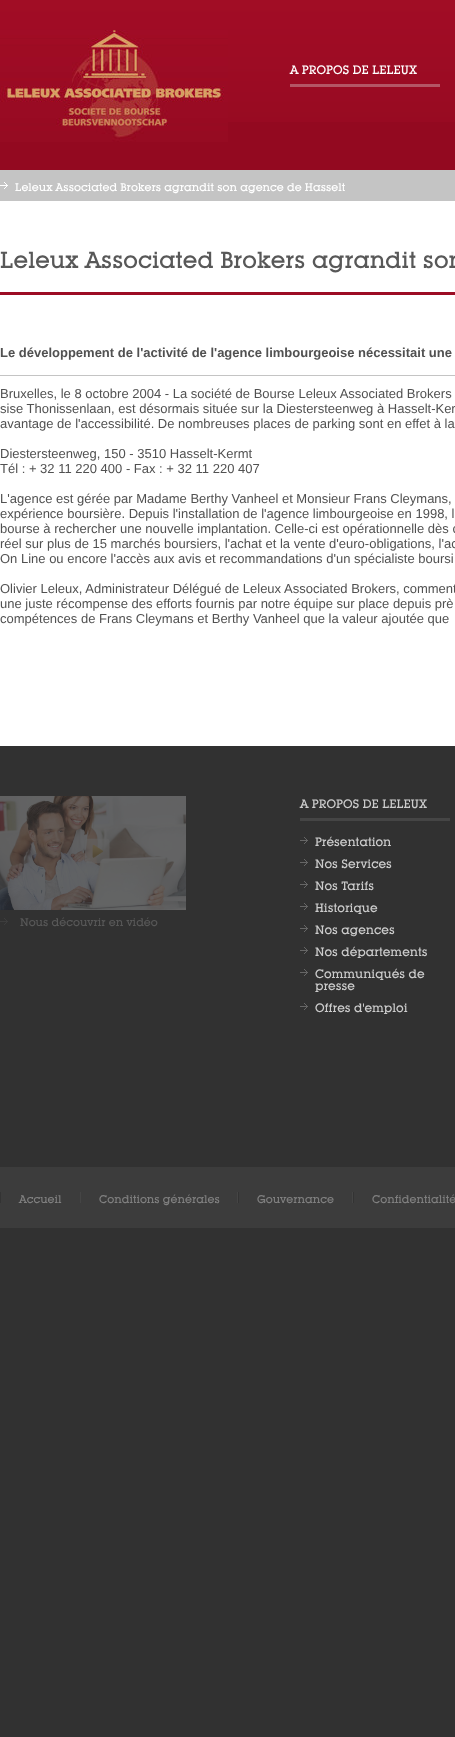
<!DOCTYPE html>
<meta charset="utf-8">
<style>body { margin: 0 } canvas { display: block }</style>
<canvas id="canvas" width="455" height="1737"></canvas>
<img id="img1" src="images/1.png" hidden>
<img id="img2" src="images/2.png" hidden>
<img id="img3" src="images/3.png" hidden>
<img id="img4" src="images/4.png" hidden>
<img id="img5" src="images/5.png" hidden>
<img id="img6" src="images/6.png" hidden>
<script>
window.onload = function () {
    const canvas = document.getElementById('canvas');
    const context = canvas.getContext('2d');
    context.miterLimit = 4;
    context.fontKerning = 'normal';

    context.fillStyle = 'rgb(49, 49, 49)';
    context.fillRect(0, 0, 455, 1737);
    context.fillStyle = 'rgb(147, 9, 32)';
    context.fillRect(0, 122, 455, 48);
    context.drawImage(document.getElementById('img1'), 0, 0, 455, 122);
    context.drawImage(document.getElementById('img2'), 0, 30, 228, 112);
    context.fillStyle = 'rgb(180, 86, 101)';
    context.fillRect(290, 84, 150, 3);
    context.fillStyle = 'rgb(255, 255, 255)';
    context.fillRect(0, 201, 455, 545);
    context.fillStyle = 'rgb(196, 196, 196)';
    context.fillRect(0, 170, 455, 31);
    context.drawImage(document.getElementById('img3'), 0, 182, 8, 7);
    context.fillStyle = 'rgb(156, 12, 36)';
    context.fillRect(0, 292, 455, 3);
    context.fillStyle = 'rgb(196, 196, 196)';
    context.fillRect(0, 375, 455, 1);
    context.drawImage(document.getElementById('img4'), 0, 796, 186, 114);
    context.drawImage(document.getElementById('img5'), 0, 918, 8, 7);
    context.fillStyle = 'rgb(69, 69, 69)';
    context.fillRect(300, 818, 150, 3);
    context.drawImage(document.getElementById('img6'), 300, 837, 8, 7);
    context.drawImage(document.getElementById('img6'), 300, 859, 8, 7);
    context.drawImage(document.getElementById('img6'), 300, 881, 8, 7);
    context.drawImage(document.getElementById('img6'), 300, 903, 8, 7);
    context.drawImage(document.getElementById('img6'), 300, 925, 8, 7);
    context.drawImage(document.getElementById('img6'), 300, 947, 8, 7);
    context.drawImage(document.getElementById('img6'), 300, 969, 8, 7);
    context.drawImage(document.getElementById('img6'), 300, 1003, 8, 7);
    context.fillStyle = 'rgb(60, 60, 60)';
    context.fillRect(0, 1167, 455, 61);
    context.fillStyle = 'rgb(69, 69, 69)';
    context.fillRect(80, 1192, 1, 11);
    context.fillStyle = 'rgb(51, 51, 51)';
    context.fillRect(0, 1192, 1, 11);
    context.fillStyle = 'rgb(69, 69, 69)';
    context.fillRect(237, 1192, 1, 11);
    context.fillRect(352, 1192, 1, 11);
    context.fillStyle = 'rgb(51, 51, 51)';
    context.fillRect(238, 1192, 1, 11);
    context.fillRect(353, 1192, 1, 11);
    context.font = '500 12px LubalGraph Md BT';
    context.fillStyle = 'rgb(255, 255, 255)';
    context.fillText('A PROPOS DE LELEUX', 290, 74);
    context.font = '500 11px LubalGraph Md BT';
    context.fillText('Leleux Associated Brokers agrandit son agence de Hasselt', 15, 191);
    context.font = '500 23px LubalGraph Md BT';
    context.fillStyle = 'rgb(88, 88, 88)';
    context.fillText('Leleux Associated Brokers agrandit son', 0, 268);
    context.font = 'bold 13px Liberation Sans';
    context.fillStyle = 'rgb(81, 81, 81)';
    context.fillText('Le développement de l\'activité de l\'agence limbourgeoise nécessitait une', 0, 357);
    context.font = '13px Liberation Sans';
    context.fillText('Bruxelles, le 8 octobre 2004 - La société de Bourse Leleux Associated Brokers', 0, 398);
    context.fillText('sise Thonissenlaan, est désormais située sur la Diestersteenweg à Hasselt-Ker', 0, 413);
    context.fillText('avantage de l\'accessibilité. De nombreuses places de parking sont en effet à la', 0, 428);
    context.fillText('Diestersteenweg, 150 - 3510 Hasselt-Kermt', 0, 458);
    context.fillText('Tél : + 32 11 220 400 - Fax : + 32 11 220 407', 0, 473);
    context.fillText('L\'agence est gérée par Madame Berthy Vanheel et Monsieur Frans Cleymans,', 0, 503);
    context.fillText('expérience boursière. Depuis l\'installation de l\'agence limbourgeoise en 1998, l', 0, 518);
    context.fillText('bourse à rechercher une nouvelle implantation. Celle-ci est opérationnelle dès c', 0, 533);
    context.fillText('réel sur plus de 15 marchés boursiers, l\'achat et la vente d\'euro-obligations, l\'ac', 0, 548);
    context.fillText('On Line ou encore l\'accès aux avis et recommandations d\'un spécialiste boursi', 0, 563);
    context.fillText('Olivier Leleux, Administrateur Délégué de Leleux Associated Brokers, comment', 0, 593);
    context.fillText('une juste récompense des efforts fournis par notre équipe sur place depuis prè', 0, 608);
    context.fillText('compétences de Frans Cleymans et Berthy Vanheel que la valeur ajoutée que', 0, 623);
    context.font = '500 11px LubalGraph Md BT';
    context.fillStyle = 'rgb(88, 88, 88)';
    context.fillText('Nous découvrir en vidéo', 20, 926);
    context.font = '500 12px LubalGraph Md BT';
    context.fillStyle = 'rgb(204, 204, 204)';
    context.fillText('A PROPOS DE LELEUX', 300, 808);
    context.fillText('Présentation', 315, 846);
    context.fillText('Nos Services', 315, 868);
    context.fillText('Nos Tarifs', 315, 890);
    context.fillText('Historique', 315, 912);
    context.fillText('Nos agences', 315, 934);
    context.fillText('Nos départements', 315, 956);
    context.fillText('Communiqués de', 315, 978);
    context.fillText('presse', 315, 990);
    context.fillText('Offres d\'emploi', 315, 1012);
    context.font = '500 11px LubalGraph Md BT';
    context.fillStyle = 'rgb(128, 128, 128)';
    context.fillText('Accueil', 19, 1203);
    context.fillText('Conditions générales', 99, 1203);
    context.fillText('Gouvernance', 257, 1203);
    context.fillText('Confidentialité', 372, 1203);
};
</script>
